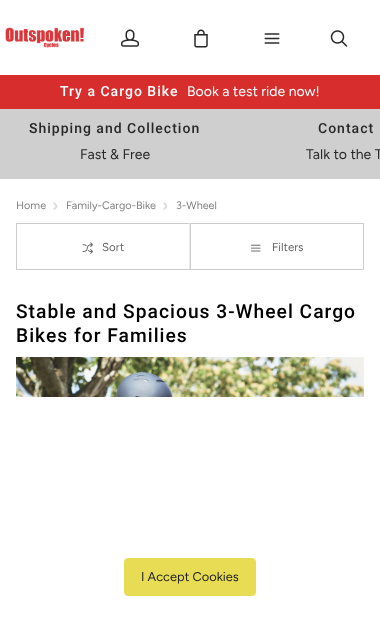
<!DOCTYPE html>
<meta charset="utf-8">
<style>body { margin: 0 } canvas { display: block }</style>
<canvas id="canvas" width="380" height="632"></canvas>
<img id="img1" src="images/1.png" hidden>
<img id="img2" src="images/2.png" hidden>
<img id="img3" src="images/3.png" hidden>
<img id="img4" src="images/4.png" hidden>
<img id="img5" src="images/5.png" hidden>
<img id="img6" src="images/6.png" hidden>
<img id="img7" src="images/7.png" hidden>
<img id="img8" src="images/8.png" hidden>
<script>
window.onload = function () {
    const canvas = document.getElementById('canvas');
    const context = canvas.getContext('2d');
    context.miterLimit = 4;
    context.fontKerning = 'normal';

    context.fillStyle = 'rgb(207, 207, 207)';
    context.fillRect(0, 0, 380, 632);
    context.fillStyle = 'rgb(255, 255, 255)';
    context.fillRect(0, 0, 380, 75);
    context.drawImage(document.getElementById('img1'), 5, 27, 80, 21);
    context.drawImage(document.getElementById('img2'), 121, 29, 18, 18);
    context.drawImage(document.getElementById('img3'), 194, 29, 14, 19);
    context.drawImage(document.getElementById('img4'), 264, 33, 16, 11);
    context.drawImage(document.getElementById('img5'), 330, 30, 18, 17);
    context.fillStyle = 'rgb(215, 45, 45)';
    context.fillRect(0, 75, 380, 34);
    context.fillStyle = 'rgb(255, 255, 255)';
    context.fillRect(0, 179, 380, 453);
    context.fillStyle = 'rgb(221, 221, 221)';
    context.beginPath();
    context.moveTo(55, 202.5);
    context.lineTo(57, 205);
    context.bezierCurveTo(57.5, 205.5, 57.5, 206, 57, 206);
    context.bezierCurveTo(56, 207.5, 54, 204.5, 53.5, 204);
    context.bezierCurveTo(52.5, 203, 54, 202, 55, 202.5);
    context.closePath();
    context.fill();
    context.beginPath();
    context.moveTo(53.5, 208.5);
    context.lineTo(56, 206);
    context.bezierCurveTo(56, 206, 56.5, 206, 57, 206);
    context.bezierCurveTo(58.5, 207.5, 55.5, 209, 55, 209.5);
    context.bezierCurveTo(54, 210.5, 52.5, 209, 53.5, 208.5);
    context.closePath();
    context.fill();
    context.beginPath();
    context.moveTo(165, 202.5);
    context.lineTo(167, 205);
    context.bezierCurveTo(167.5, 205.5, 167, 206, 167, 206);
    context.bezierCurveTo(165.5, 207.5, 164, 204.5, 163.5, 204);
    context.bezierCurveTo(162.5, 203, 164, 202, 165, 202.5);
    context.closePath();
    context.fill();
    context.beginPath();
    context.moveTo(163.5, 208.5);
    context.lineTo(165.5, 206);
    context.bezierCurveTo(166, 206, 166.5, 206, 167, 206);
    context.bezierCurveTo(168, 207.5, 165.5, 209, 165, 209.5);
    context.bezierCurveTo(164, 210.5, 162.5, 209, 163.5, 208.5);
    context.closePath();
    context.fill();
    context.fillStyle = 'rgb(204, 204, 204)';
    context.fillRect(16, 223, 174, 1);
    context.fillStyle = 'rgb(234, 234, 234)';
    context.fillRect(189, 223, 1, 47);
    context.fillStyle = 'rgb(204, 204, 204)';
    context.fillRect(16, 269, 174, 1);
    context.fillRect(16, 223, 1, 47);
    context.drawImage(document.getElementById('img6'), 82, 242, 11, 12);
    context.strokeStyle = 'rgb(204, 204, 204)';
    context.strokeRect(190.5, 223.5, 173, 46);
    context.drawImage(document.getElementById('img7'), 251, 244, 10, 8);
    context.drawImage(document.getElementById('img8'), 16, 357, 348, 40);
    context.fillStyle = 'rgb(232, 220, 84)';
    context.beginPath();
    context.roundRect(124.5, 558.5, 131, 37, 3.5);
    context.fill();
    context.strokeStyle = 'rgb(232, 220, 84)';
    context.stroke();
    context.letterSpacing = '1px';
    context.font = '500 14px Roboto';
    context.fillStyle = 'rgb(255, 255, 255)';
    context.fillText('Try a Cargo Bike', 60, 96);
    context.letterSpacing = '0px';
    context.font = '14px Figtree';
    context.fillText('Book a test ride now!', 187, 96);
    context.letterSpacing = '1px';
    context.font = '500 14px Roboto';
    context.fillStyle = 'rgb(40, 40, 40)';
    context.fillText('Shipping and Collection', 29, 133);
    context.letterSpacing = '0px';
    context.font = '14px Figtree';
    context.fillText('Fast & Free', 80, 159);
    context.letterSpacing = '1px';
    context.font = '500 14px Roboto';
    context.fillText('Contact', 318, 133);
    context.letterSpacing = '0px';
    context.font = '14px Figtree';
    context.fillText('Talk to the T', 306, 159);
    context.font = '10.75px Figtree';
    context.fillStyle = 'rgb(128, 128, 128)';
    context.fillText('Home', 16, 209);
    context.fillText('Family-Cargo-Bike', 66, 209);
    context.fillText('3-Wheel', 176, 209);
    context.font = '11.5px Figtree';
    context.fillStyle = 'rgb(102, 102, 102)';
    context.fillText('Sort', 102, 251);
    context.fillText('Filters', 272, 251);
    context.letterSpacing = '1px';
    context.font = '500 19.25px Roboto';
    context.fillStyle = 'rgb(0, 0, 0)';
    context.fillText('Stable and Spacious 3-Wheel Cargo', 16, 318);
    context.fillText('Bikes for Families', 16, 342);
    context.letterSpacing = '0px';
    context.font = '12.75px Figtree';
    context.fillStyle = 'rgb(34, 34, 34)';
    context.fillText('I Accept Cookies', 141, 581);
};
</script>
